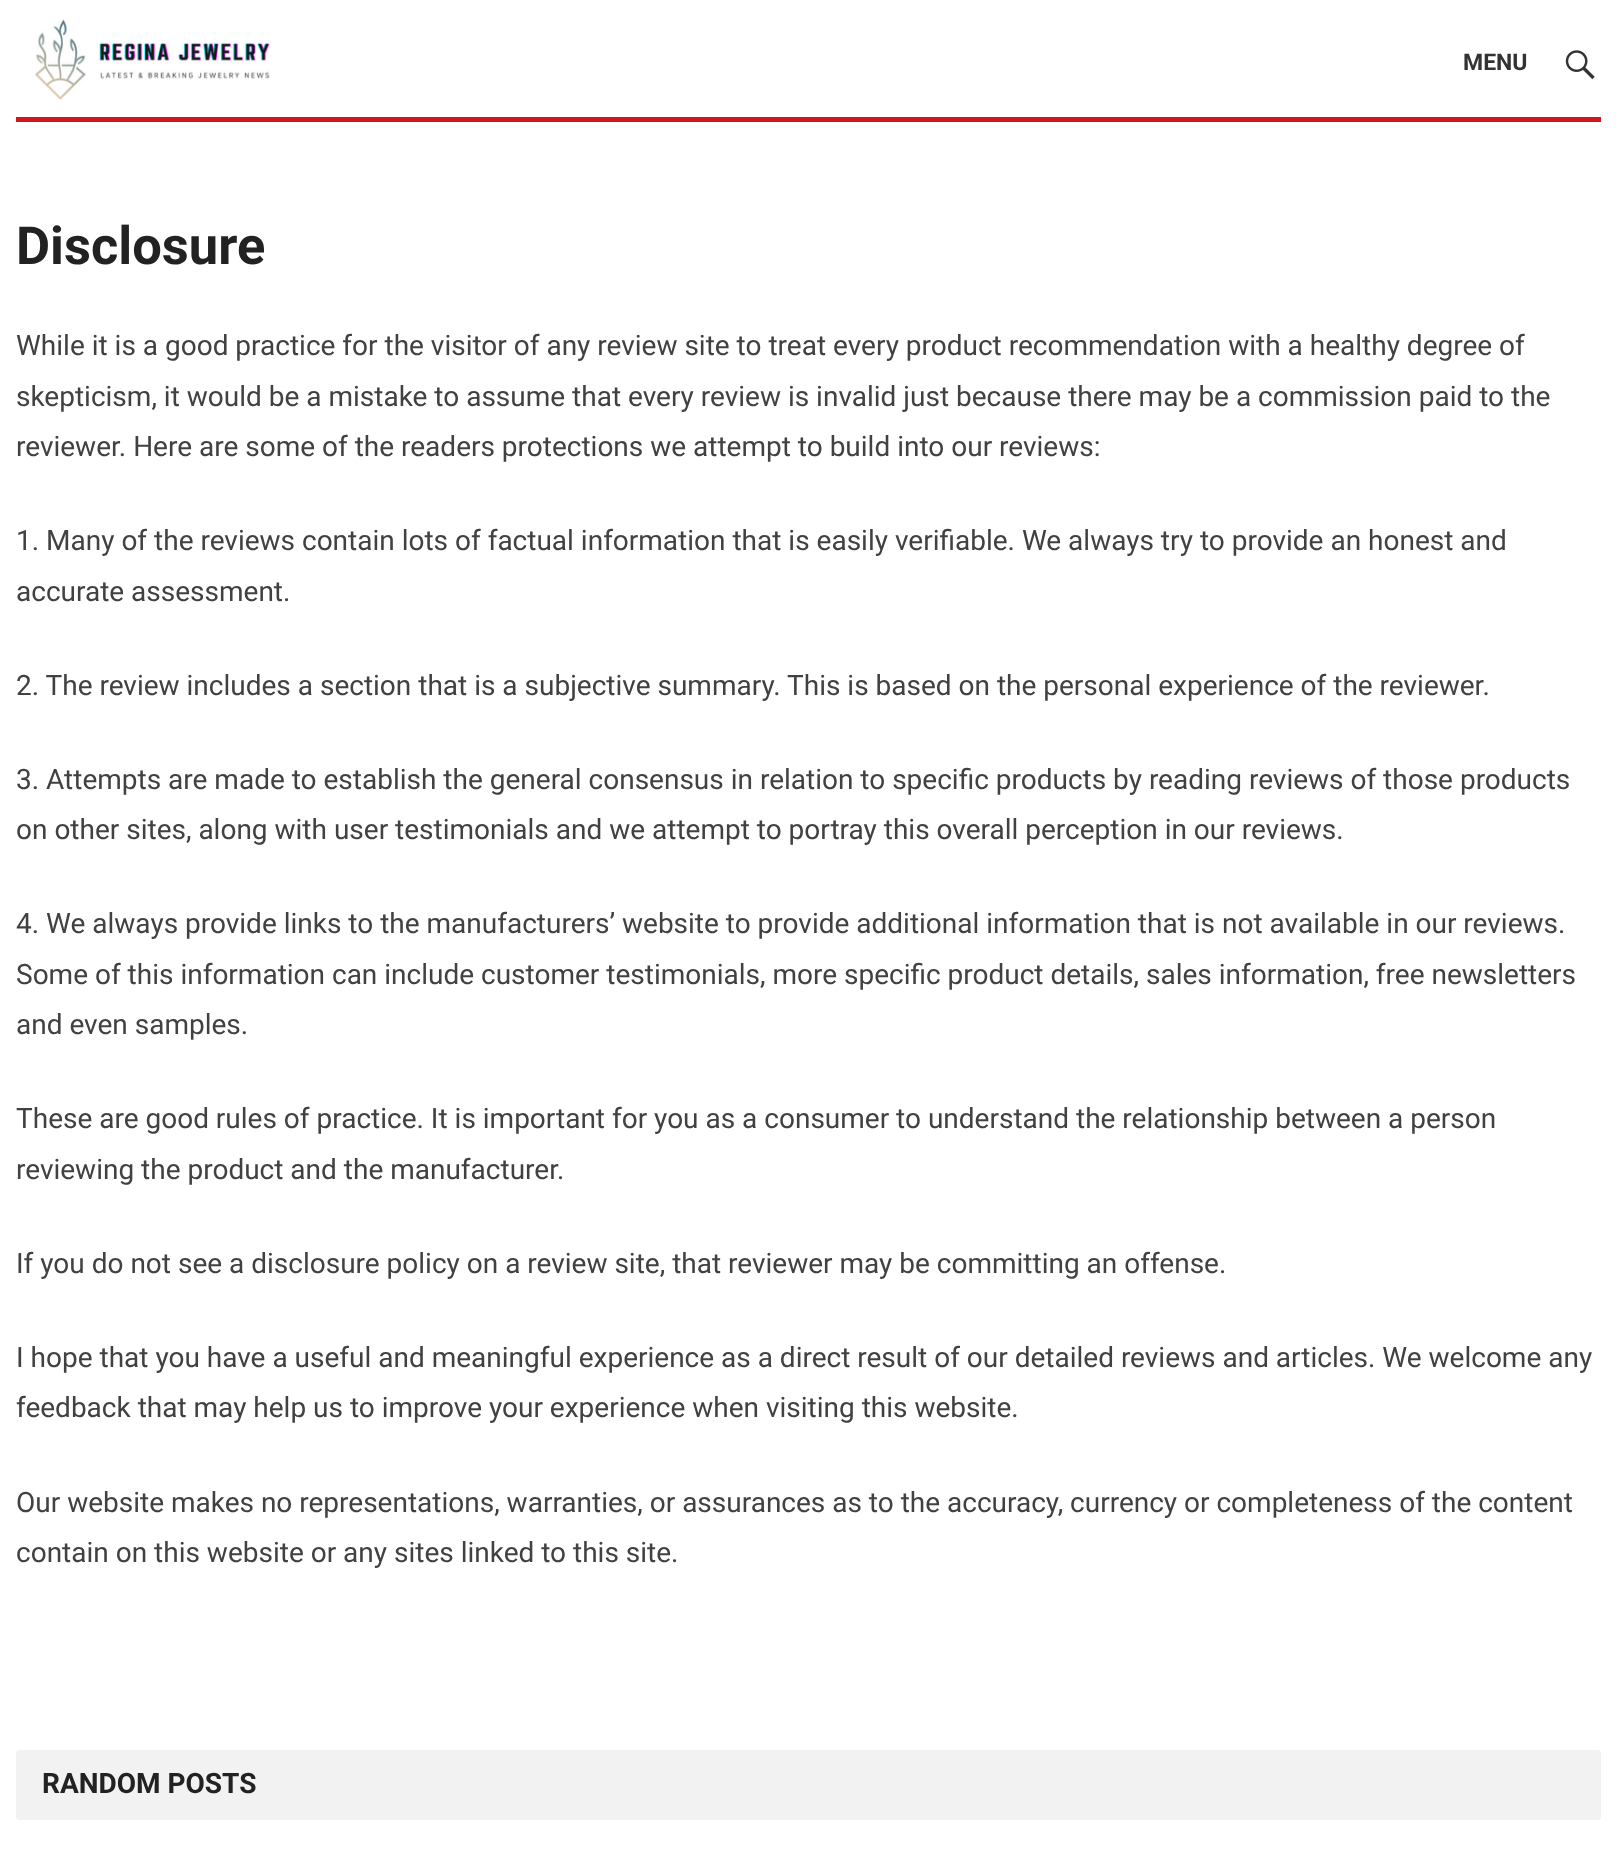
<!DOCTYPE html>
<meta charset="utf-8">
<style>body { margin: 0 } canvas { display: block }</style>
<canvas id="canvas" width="1616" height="1860"></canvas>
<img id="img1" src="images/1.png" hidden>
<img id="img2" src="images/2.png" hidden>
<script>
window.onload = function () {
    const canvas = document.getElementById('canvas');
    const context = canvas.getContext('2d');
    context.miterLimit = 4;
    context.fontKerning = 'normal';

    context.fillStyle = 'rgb(255, 255, 255)';
    context.fillRect(0, 0, 1616, 1860);
    context.fillStyle = 'rgb(206, 24, 30)';
    context.fillRect(16, 117, 1585, 5);
    context.drawImage(document.getElementById('img1'), 35, 19, 235, 81);
    context.drawImage(document.getElementById('img2'), 1565, 50, 30, 30);
    context.fillStyle = 'rgb(242, 242, 242)';
    context.beginPath();
    context.roundRect(16, 1750, 1585, 70, 4);
    context.fill();
    context.font = 'bold 23px Roboto';
    context.fillStyle = 'rgb(51, 51, 51)';
    context.fillText('MENU', 1463, 70);
    context.font = 'bold 52.5px Roboto';
    context.fillStyle = 'rgb(34, 34, 34)';
    context.fillText('Disclosure', 16, 264);
    context.font = '28px Roboto';
    context.fillStyle = 'rgb(65, 65, 65)';
    context.fillText('While it is a good practice for the visitor of any review site to treat every product recommendation with a healthy degree of', 16, 355);
    context.fillText('skepticism, it would be a mistake to assume that every review is invalid just because there may be a commission paid to the', 16, 406);
    context.fillText('reviewer. Here are some of the readers protections we attempt to build into our reviews:', 16, 456);
    context.fillText('1. Many of the reviews contain lots of factual information that is easily verifiable. We always try to provide an honest and', 16, 550);
    context.fillText('accurate assessment.', 16, 601);
    context.fillText('2. The review includes a section that is a subjective summary. This is based on the personal experience of the reviewer.', 16, 695);
    context.fillText('3. Attempts are made to establish the general consensus in relation to specific products by reading reviews of those products', 16, 789);
    context.fillText('on other sites, along with user testimonials and we attempt to portray this overall perception in our reviews.', 16, 839);
    context.fillText('4. We always provide links to the manufacturers’ website to provide additional information that is not available in our reviews.', 16, 933);
    context.fillText('Some of this information can include customer testimonials, more specific product details, sales information, free newsletters', 16, 984);
    context.fillText('and even samples.', 16, 1034);
    context.fillText('These are good rules of practice. It is important for you as a consumer to understand the relationship between a person', 16, 1128);
    context.fillText('reviewing the product and the manufacturer.', 16, 1179);
    context.fillText('If you do not see a disclosure policy on a review site, that reviewer may be committing an offense.', 16, 1273);
    context.fillText('I hope that you have a useful and meaningful experience as a direct result of our detailed reviews and articles. We welcome any', 16, 1367);
    context.fillText('feedback that may help us to improve your experience when visiting this website.', 16, 1417);
    context.fillText('Our website makes no representations, warranties, or assurances as to the accuracy, currency or completeness of the content', 16, 1512);
    context.fillText('contain on this website or any sites linked to this site.', 16, 1562);
    context.font = 'bold 28px Roboto';
    context.fillStyle = 'rgb(34, 34, 34)';
    context.fillText('RANDOM POSTS', 42, 1793);
};
</script>
